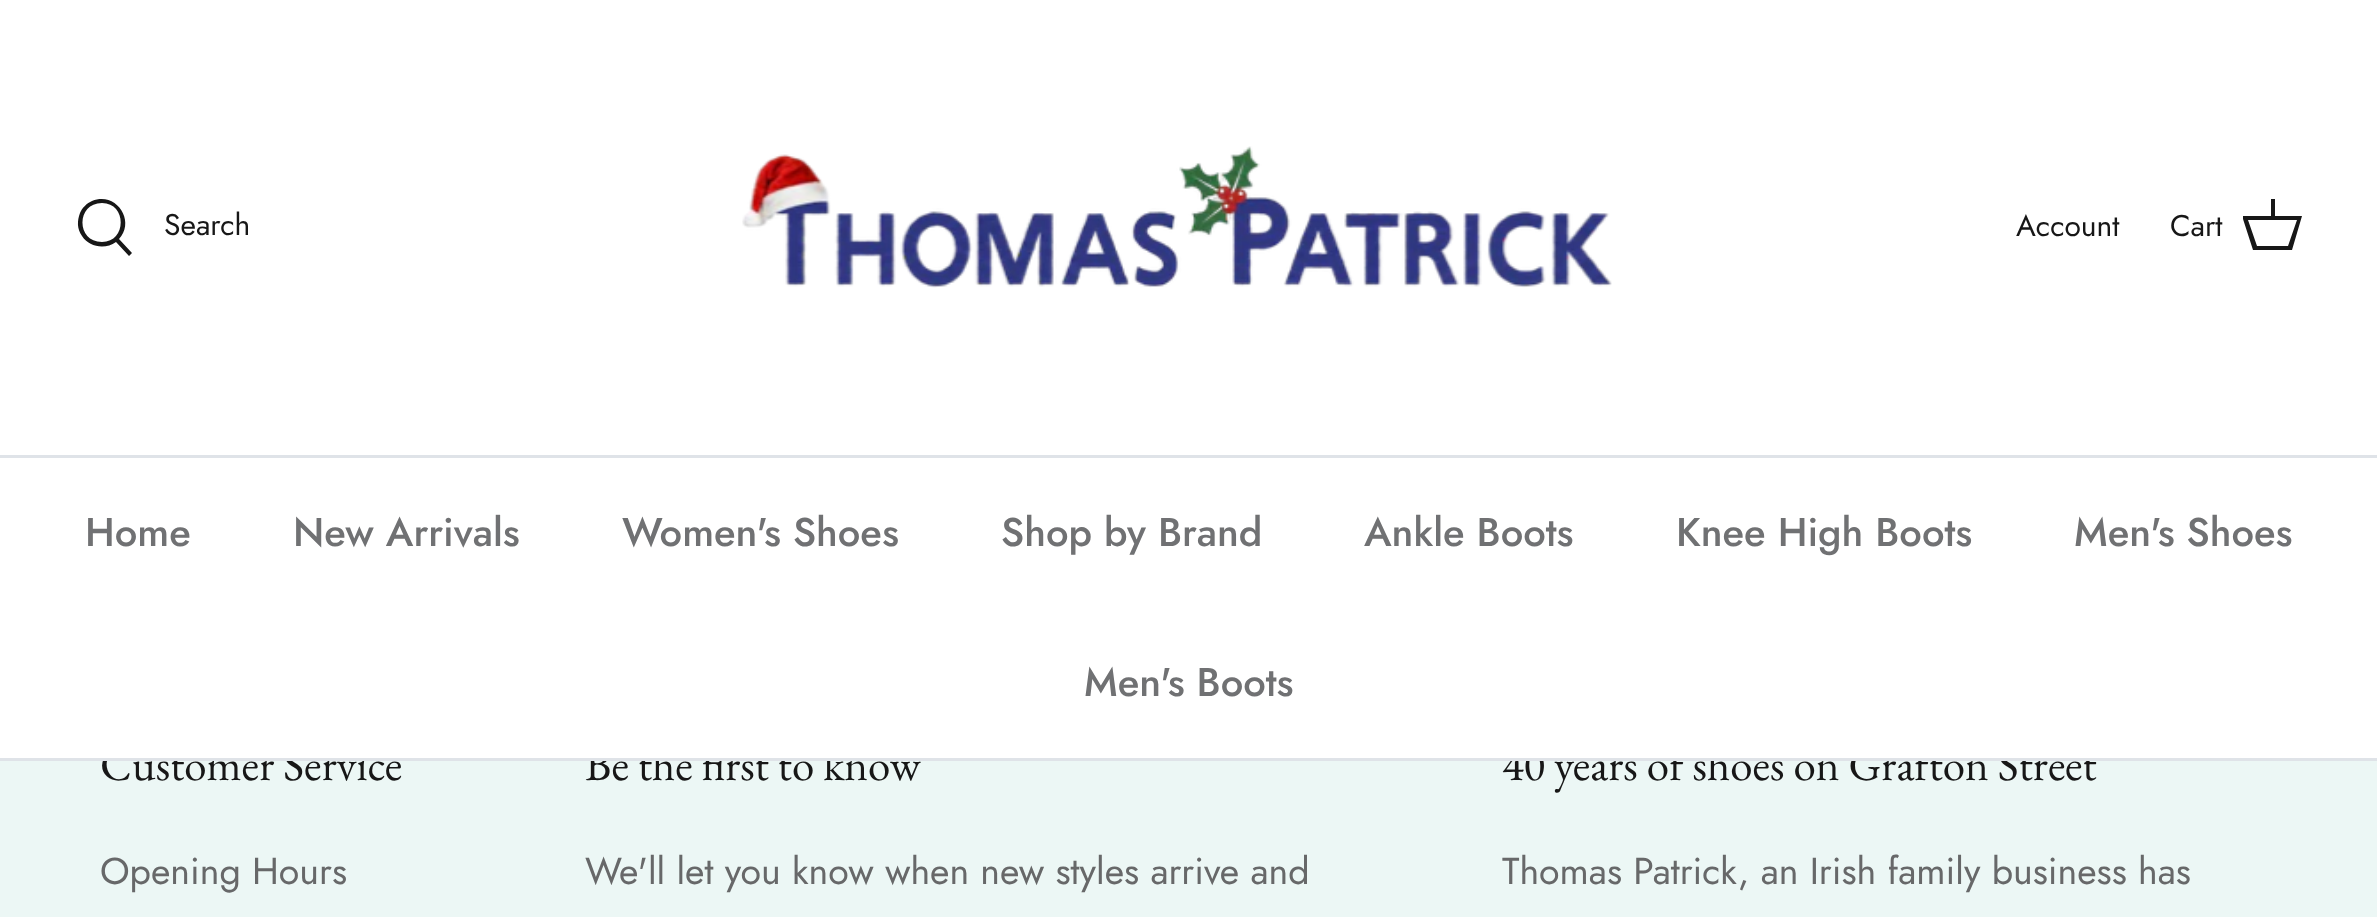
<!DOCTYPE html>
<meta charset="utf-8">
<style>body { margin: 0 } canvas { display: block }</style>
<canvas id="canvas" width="2377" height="917"></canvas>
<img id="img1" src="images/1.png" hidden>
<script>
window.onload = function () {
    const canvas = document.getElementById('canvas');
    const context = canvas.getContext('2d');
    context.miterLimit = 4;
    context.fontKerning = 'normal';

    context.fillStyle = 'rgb(236, 247, 245)';
    context.fillRect(0, 0, 2377, 917);
    context.fillStyle = 'rgb(255, 255, 255)';
    context.fillRect(0, 0, 2377, 455);
    context.fillStyle = 'rgb(223, 227, 232)';
    context.fillRect(0, 455, 2377, 3);
    context.fillStyle = 'rgb(23, 23, 23)';
    context.beginPath();
    context.moveTo(119, 239);
    context.lineTo(132, 253);
    context.lineTo(129, 256);
    context.lineTo(116, 242);
    context.bezierCurveTo(105, 250, 89, 247, 82, 236);
    context.bezierCurveTo(77, 229, 77, 221, 80, 213);
    context.bezierCurveTo(82, 208, 87, 203, 92, 201);
    context.bezierCurveTo(116, 191, 136, 221, 119, 239);
    context.closePath();
    context.moveTo(102, 242);
    context.bezierCurveTo(127, 242, 127, 203, 102, 203);
    context.bezierCurveTo(76, 203, 76, 242, 102, 242);
    context.closePath();
    context.fill();
    context.drawImage(document.getElementById('img1'), 742, 146, 870, 142);
    context.save();
    context.beginPath();
    context.rect(2243, 195, 60, 60);
    context.clip();
    context.beginPath();
    context.moveTo(2271, 216);
    context.lineTo(2271, 199);
    context.lineTo(2275, 199);
    context.lineTo(2275, 216);
    context.lineTo(2302, 216);
    context.lineTo(2292, 250);
    context.lineTo(2253, 250);
    context.lineTo(2242, 216);
    context.closePath();
    context.moveTo(2248, 220);
    context.lineTo(2257, 246);
    context.lineTo(2288, 246);
    context.lineTo(2297, 220);
    context.closePath();
    context.fill();
    context.restore();
    context.font = '30px Jost';
    context.fillText('Search', 164, 235);
    context.fillText('Account', 2016, 236);
    context.fillText('Cart', 2170, 236);
    context.font = '45px EB Garamond';
    context.fillText('Customer Service', 100, 780);
    context.font = '37.5px Jost';
    context.fillStyle = 'rgb(103, 104, 105)';
    context.fillText('Opening Hours', 100, 884);
    context.font = '45px EB Garamond';
    context.fillStyle = 'rgb(23, 23, 23)';
    context.fillText('Be the first to know', 585, 780);
    context.font = '37.5px Jost';
    context.fillStyle = 'rgb(103, 104, 105)';
    context.fillText('We\'ll let you know when new styles arrive and', 585, 884);
    context.font = '45px EB Garamond';
    context.fillStyle = 'rgb(23, 23, 23)';
    context.fillText('40 years of shoes on Grafton Street', 1502, 780);
    context.fillStyle = 'rgb(255, 255, 255)';
    context.fillRect(0, 458, 2377, 300);
    context.font = '500 40px Jost';
    context.fillStyle = 'rgb(112, 113, 115)';
    context.fillText('Men\'s Boots', 1084, 696);
    context.fillText('Men\'s Shoes', 2074, 546);
    context.fillText('Knee High Boots', 1676, 546);
    context.fillText('Ankle Boots', 1364, 546);
    context.fillText('Shop by Brand', 1001, 546);
    context.fillText('Women\'s Shoes', 622, 546);
    context.fillText('New Arrivals', 293, 546);
    context.fillText('Home', 85, 546);
    context.fillStyle = 'rgb(223, 227, 232)';
    context.fillRect(0, 758, 2377, 3);
    context.font = '37.5px Jost';
    context.fillStyle = 'rgb(103, 104, 105)';
    context.fillText('Thomas Patrick, an Irish family business has', 1502, 884);
};
</script>
